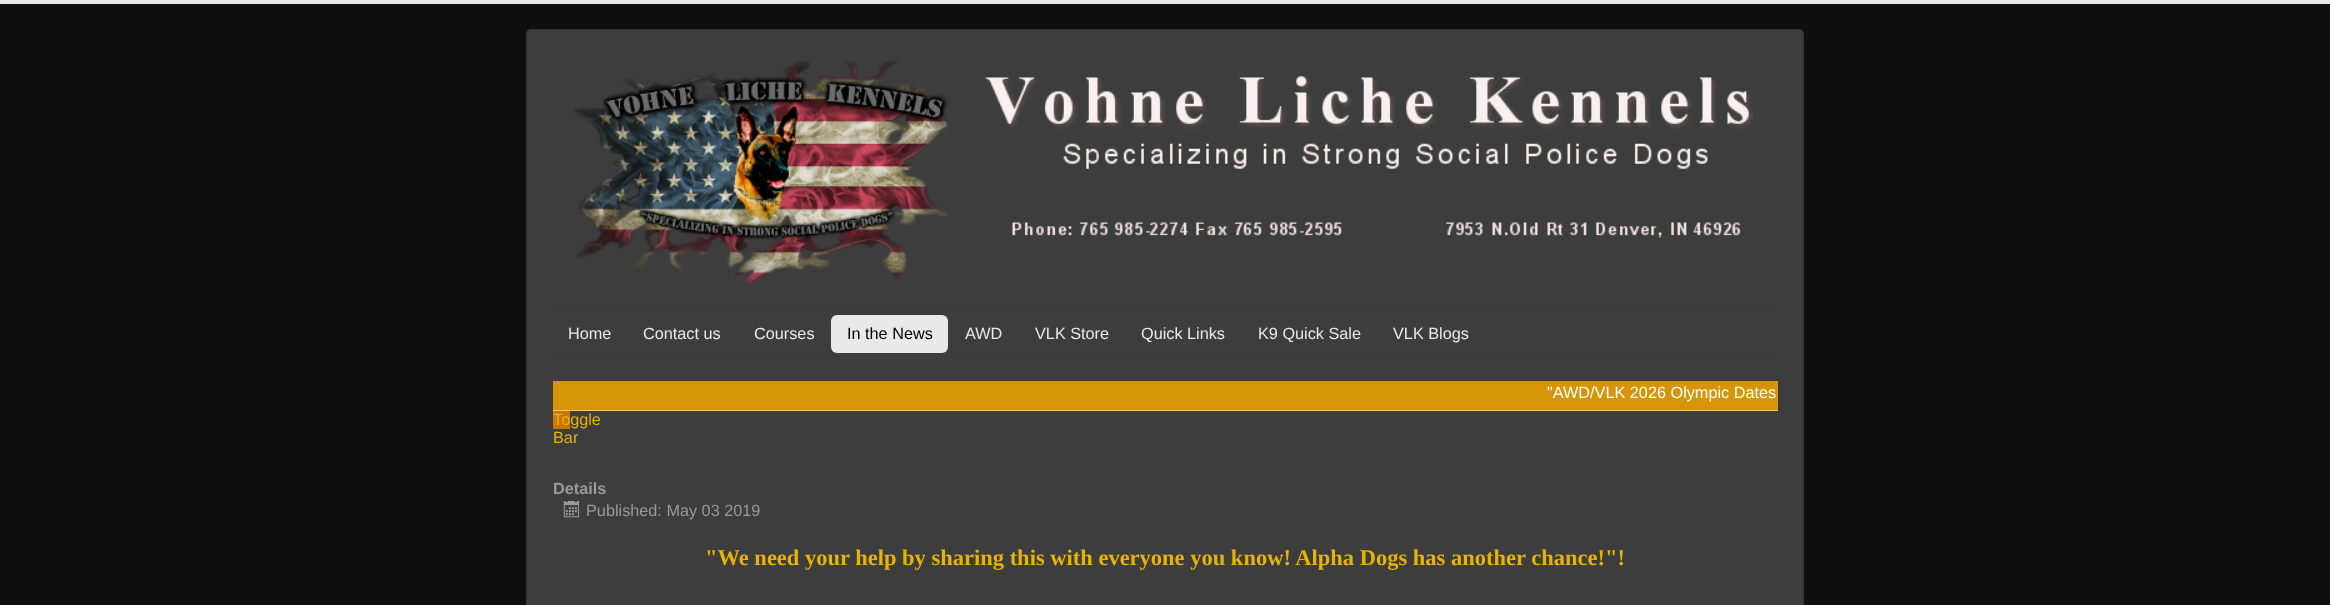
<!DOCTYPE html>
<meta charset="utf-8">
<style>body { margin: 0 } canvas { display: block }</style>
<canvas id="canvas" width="2330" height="605"></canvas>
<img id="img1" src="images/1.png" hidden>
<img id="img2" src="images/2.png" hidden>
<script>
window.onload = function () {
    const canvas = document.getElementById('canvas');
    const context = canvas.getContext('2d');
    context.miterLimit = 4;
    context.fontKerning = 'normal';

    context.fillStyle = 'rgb(15, 15, 15)';
    context.fillRect(0, 0, 2330, 605);
    context.fillStyle = 'rgb(233, 233, 233)';
    context.fillRect(0, 0, 2330, 4);
    context.fillStyle = 'rgb(61, 61, 61)';
    context.beginPath();
    context.roundRect(526, 29, 1278, 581, 5);
    context.fill();
    context.beginPath();
    context.roundRect(526.5, 29.5, 1277, 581, 4.5);
    context.strokeStyle = 'rgba(0, 0, 0, 0.15)';
    context.stroke();
    context.drawImage(document.getElementById('img1'), 573, 61, 1181, 226);
    context.fillStyle = 'rgb(56, 56, 56)';
    context.fillRect(553, 305, 1225, 1);
    context.fillRect(553, 356, 1225, 1);
    context.fillStyle = 'rgb(233, 233, 233)';
    context.beginPath();
    context.roundRect(831, 315, 117, 38, 6);
    context.fill();
    context.fillStyle = 'rgb(214, 148, 7)';
    context.fillRect(553, 381, 1225, 29);
    context.fillStyle = 'rgb(245, 205, 93)';
    context.fillRect(553, 410, 1225, 1);
    context.fillStyle = 'rgb(201, 117, 8)';
    context.fillRect(553, 411, 17, 18);
    context.drawImage(document.getElementById('img2'), 563, 501, 16, 17);
    context.font = '16.25px Liberation Sans';
    context.fillStyle = 'rgb(233, 233, 233)';
    context.fillText('Home', 568, 339);
    context.fillText('Contact us', 643, 339);
    context.fillText('Courses', 754, 339);
    context.fillStyle = 'rgb(0, 0, 0)';
    context.fillText('In the News', 847, 339);
    context.fillStyle = 'rgb(233, 233, 233)';
    context.fillText('AWD', 965, 339);
    context.fillText('VLK Store', 1035, 339);
    context.fillText('Quick Links', 1141, 339);
    context.fillText('K9 Quick Sale', 1258, 339);
    context.fillText('VLK Blogs', 1393, 339);
    context.fillStyle = 'rgb(255, 255, 255)';
    context.fillText('"AWD/VLK 2026 Olympic Dates', 1547, 398);
    context.fillStyle = 'rgb(231, 179, 9)';
    context.fillText('Toggle', 553, 425);
    context.fillText('Bar', 553, 443);
    context.font = 'bold 16.25px Liberation Sans';
    context.fillStyle = 'rgb(153, 153, 153)';
    context.fillText('Details', 553, 494);
    context.font = '16.25px Liberation Sans';
    context.fillText('Published: May 03 2019', 586, 516);
    context.font = 'bold 22.5px Liberation Serif';
    context.fillStyle = 'rgb(231, 179, 9)';
    context.fillText('"We need your help by sharing this with everyone you know! Alpha Dogs has another chance!"!', 705, 565);
};
</script>
